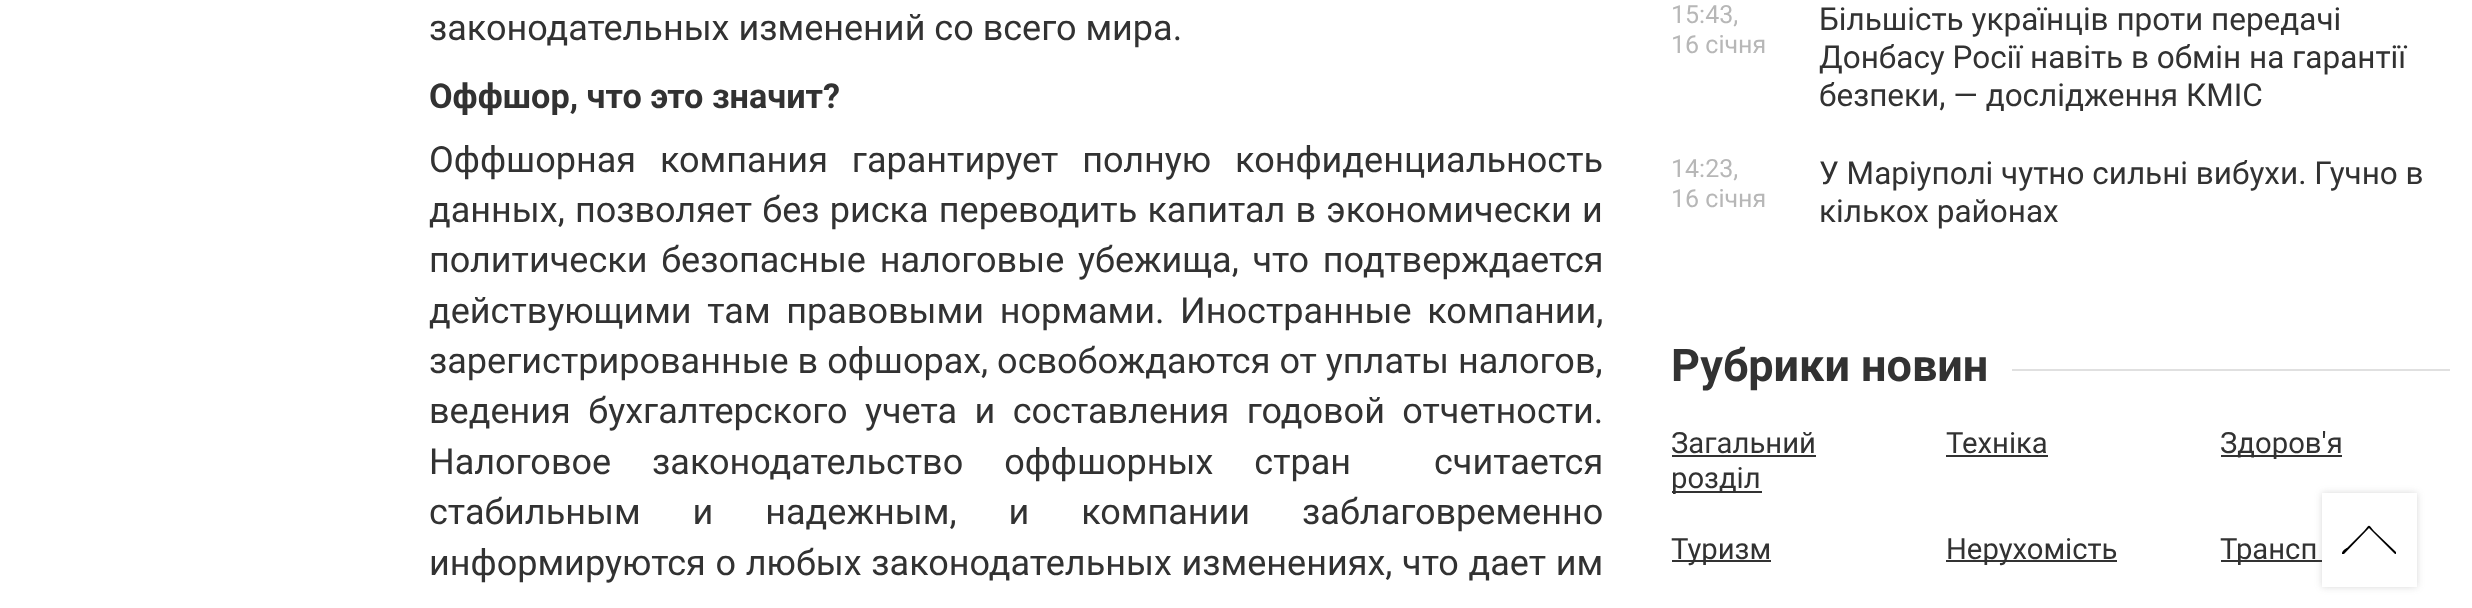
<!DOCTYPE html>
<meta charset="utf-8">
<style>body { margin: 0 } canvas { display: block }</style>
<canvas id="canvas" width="2472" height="608"></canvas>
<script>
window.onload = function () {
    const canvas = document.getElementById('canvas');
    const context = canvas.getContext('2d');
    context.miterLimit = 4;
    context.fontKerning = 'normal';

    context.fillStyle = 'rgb(255, 255, 255)';
    context.fillRect(0, 0, 2472, 608);
    context.fillStyle = 'rgb(224, 224, 224)';
    context.fillRect(2012, 369, 438, 2);
    context.fillStyle = 'rgb(50, 50, 50)';
    context.fillRect(1672, 455, 144, 2);
    context.fillRect(1672, 491, 90, 2);
    context.fillRect(1946, 455, 102, 2);
    context.fillRect(2221, 455, 121, 2);
    context.fillRect(1672, 560, 99, 2);
    context.fillRect(1946, 560, 171, 2);
    context.fillRect(2221, 560, 101, 2);
    context.fillStyle = 'rgba(99, 99, 99, 0.25)';
    context.filter = 'blur(3.5px)';
    context.beginPath();
    context.rect(2322, 493, 95, 94);
    context.fill();
    context.filter = 'none';
    context.fillStyle = 'rgb(255, 255, 255)';
    context.fillRect(2322, 493, 95, 94);
    context.save();
    context.beginPath();
    context.rect(2342, 513, 54, 54);
    context.clip();
    context.fillStyle = 'rgb(0, 0, 0)';
    context.beginPath();
    context.moveTo(2396, 552);
    context.lineTo(2374, 531);
    context.bezierCurveTo(2368, 524, 2370, 524, 2364, 531);
    context.lineTo(2347, 548);
    context.bezierCurveTo(2346, 548, 2341, 552, 2342, 554);
    context.lineTo(2344, 554);
    context.lineTo(2369, 528);
    context.lineTo(2395, 554);
    context.bezierCurveTo(2396, 554, 2397, 553, 2396, 552);
    context.closePath();
    context.fill();
    context.restore();
    context.font = '36px Roboto';
    context.fillStyle = 'rgb(50, 50, 50)';
    context.fillText('законодательных изменений со всего мира.', 429, 40);
    context.font = 'bold 34.25px Roboto';
    context.fillText('Оффшор, что это значит?', 429, 108);
    context.wordSpacing = '15px';
    context.font = '36px Roboto';
    context.fillText('Оффшорная компания гарантирует полную конфиденциальность', 429, 172);
    context.wordSpacing = '1.25px';
    context.fillText('данных, позволяет без риска переводить капитал в экономически и', 429, 222);
    context.wordSpacing = '4.75px';
    context.fillText('политически безопасные налоговые убежища, что подтверждается', 429, 272);
    context.wordSpacing = '6.75px';
    context.fillText('действующими там правовыми нормами. Иностранные компании,', 429, 323);
    context.wordSpacing = '0px';
    context.fillText('зарегистрированные в офшорах, освобождаются от уплаты налогов,', 429, 373);
    context.wordSpacing = '8.5px';
    context.fillText('ведения бухгалтерского учета и составления годовой отчетности.', 429, 423);
    context.wordSpacing = '32px';
    context.fillText('Налоговое законодательство оффшорных стран', 429, 474);
    context.wordSpacing = '0px';
    context.fillText('считается', 1434, 474);
    context.wordSpacing = '43px';
    context.fillText('стабильным и надежным, и компании заблаговременно', 429, 524);
    context.wordSpacing = '0.75px';
    context.fillText('информируются о любых законодательных изменениях, что дает им', 429, 575);
    context.wordSpacing = '0px';
    context.font = '25px Roboto';
    context.fillStyle = 'rgb(183, 183, 183)';
    context.fillText('15:43,', 1671, 23);
    context.fillText('16 січня', 1671, 53);
    context.font = '31.5px Roboto';
    context.fillStyle = 'rgb(50, 50, 50)';
    context.fillText('Більшість українців проти передачі', 1819, 30);
    context.fillText('Донбасу Росії навіть в обмін на гарантії', 1819, 68);
    context.fillText('безпеки, — дослідження КМІС', 1819, 106);
    context.font = '25px Roboto';
    context.fillStyle = 'rgb(183, 183, 183)';
    context.fillText('14:23,', 1671, 177);
    context.fillText('16 січня', 1671, 207);
    context.font = '31.5px Roboto';
    context.fillStyle = 'rgb(50, 50, 50)';
    context.fillText('У Маріуполі чутно сильні вибухи. Гучно в', 1819, 184);
    context.fillText('кількох районах', 1819, 222);
    context.font = 'bold 45px Roboto';
    context.fillText('Рубрики новин', 1671, 381);
    context.font = '29.25px Roboto';
    context.fillText('Загальний', 1671, 453);
    context.fillText('розділ', 1671, 488);
    context.fillText('Техніка', 1946, 453);
    context.fillText('Здоров\'я', 2220, 453);
    context.fillText('Туризм', 1671, 559);
    context.fillText('Нерухомість', 1946, 559);
    context.fillText('Трансп', 2220, 559);
};
</script>
